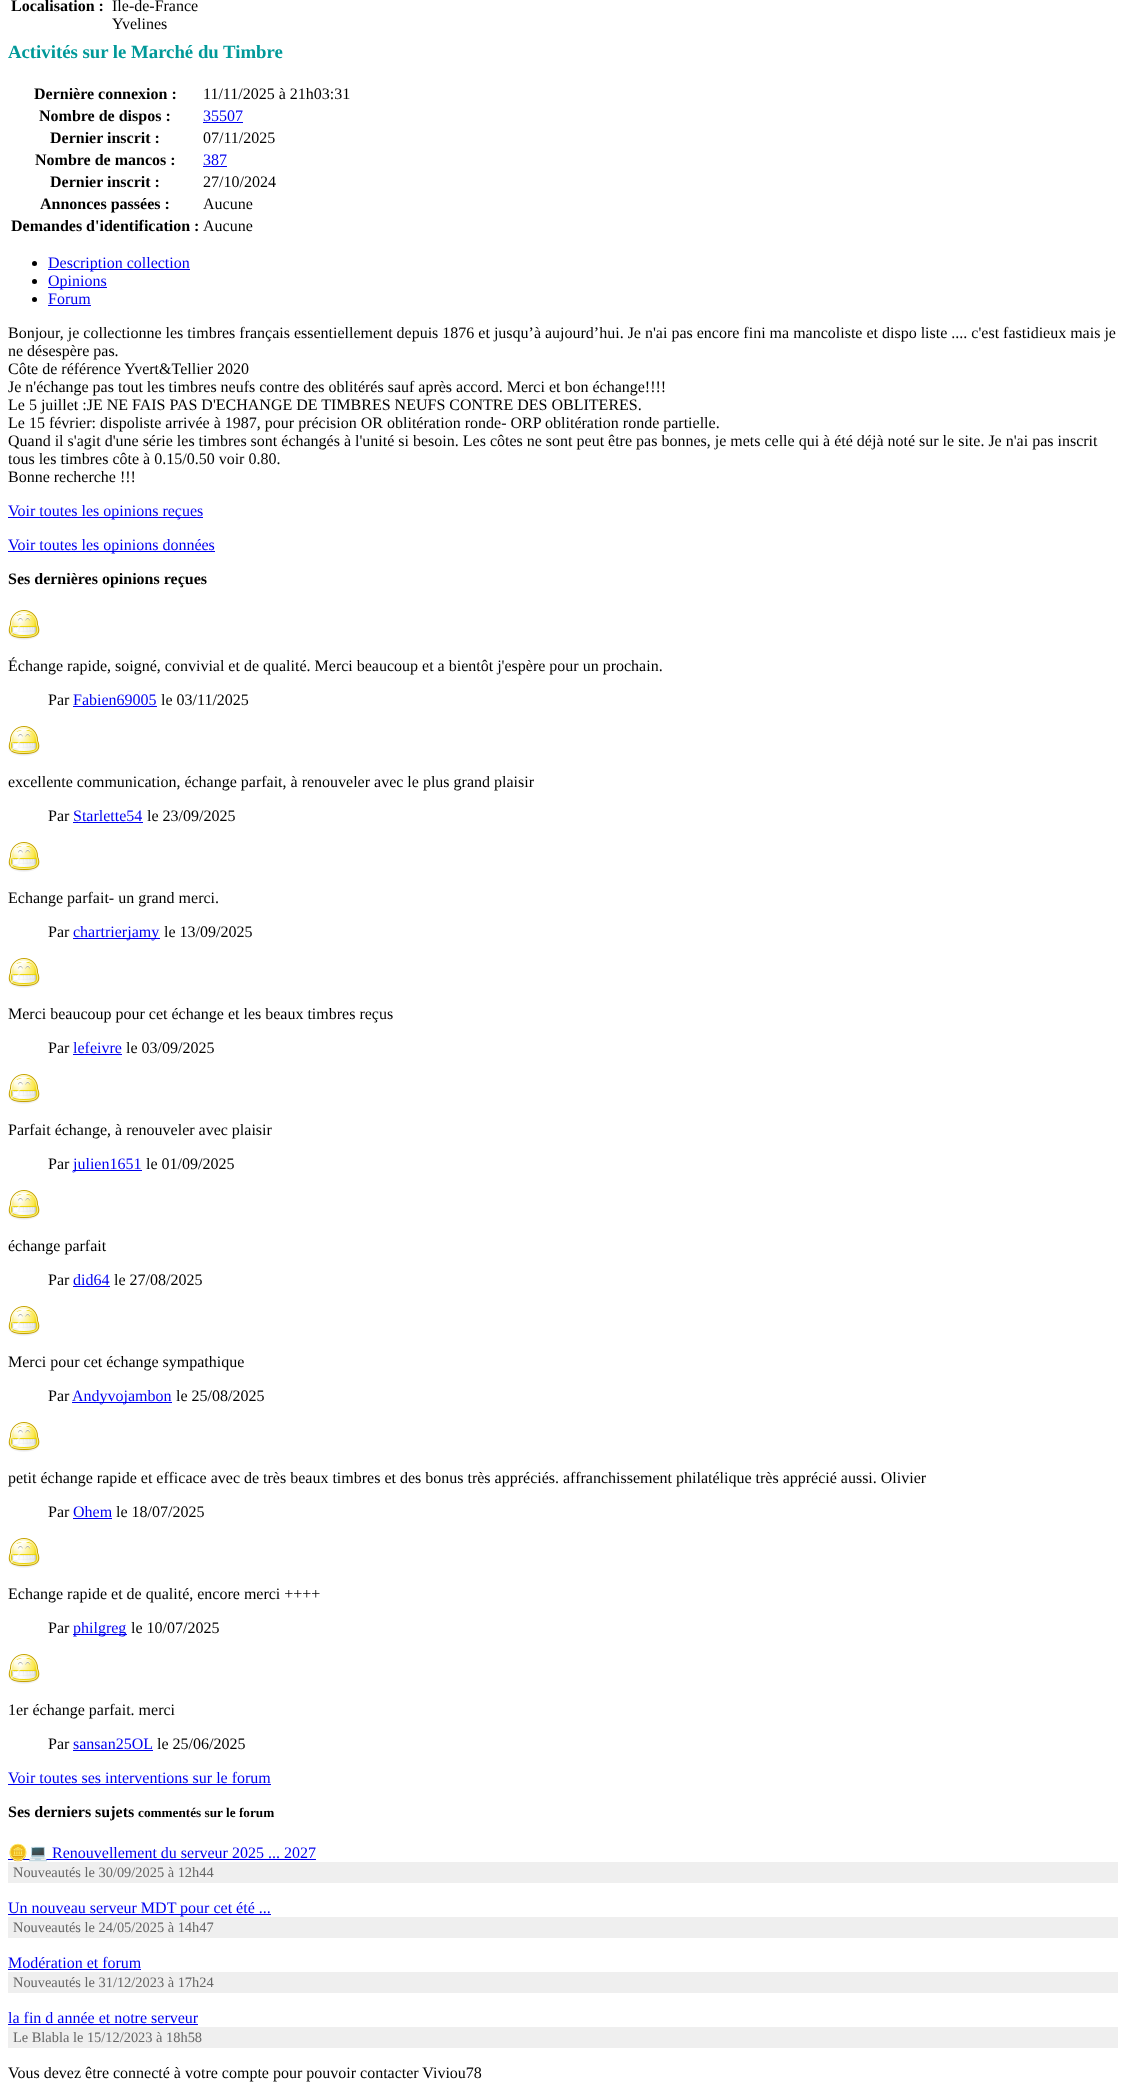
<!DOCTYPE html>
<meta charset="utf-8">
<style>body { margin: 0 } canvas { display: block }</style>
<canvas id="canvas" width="1126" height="2093"></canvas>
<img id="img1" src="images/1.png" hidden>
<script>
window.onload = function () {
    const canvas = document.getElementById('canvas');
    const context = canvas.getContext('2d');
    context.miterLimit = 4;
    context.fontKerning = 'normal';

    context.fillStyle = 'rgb(255, 255, 255)';
    context.fillRect(0, 0, 1126, 2093);
    context.fillStyle = 'rgb(0, 0, 238)';
    context.fillRect(203, 122, 40, 1);
    context.fillRect(203, 166, 24, 1);
    context.fillStyle = 'rgb(0, 0, 0)';
    context.beginPath();
    context.arc(34.5, 263.5, 2.5, 0, 2 * Math.PI);
    context.fill();
    context.fillStyle = 'rgb(0, 0, 238)';
    context.fillRect(48, 269, 142, 1);
    context.fillStyle = 'rgb(0, 0, 0)';
    context.beginPath();
    context.arc(34.5, 281.5, 2.5, 0, 2 * Math.PI);
    context.fill();
    context.fillStyle = 'rgb(0, 0, 238)';
    context.fillRect(48, 287, 59, 1);
    context.fillStyle = 'rgb(0, 0, 0)';
    context.beginPath();
    context.arc(34.5, 299.5, 2.5, 0, 2 * Math.PI);
    context.fill();
    context.fillStyle = 'rgb(0, 0, 238)';
    context.fillRect(48, 305, 43, 1);
    context.fillRect(8, 517, 195, 1);
    context.fillRect(8, 551, 207, 1);
    context.drawImage(document.getElementById('img1'), 8, 610, 32, 30);
    context.fillRect(73, 706, 84, 1);
    context.drawImage(document.getElementById('img1'), 8, 726, 32, 30);
    context.fillRect(73, 822, 70, 1);
    context.drawImage(document.getElementById('img1'), 8, 842, 32, 30);
    context.fillRect(73, 938, 87, 1);
    context.drawImage(document.getElementById('img1'), 8, 958, 32, 30);
    context.fillRect(73, 1054, 49, 1);
    context.drawImage(document.getElementById('img1'), 8, 1074, 32, 30);
    context.fillRect(73, 1170, 69, 1);
    context.drawImage(document.getElementById('img1'), 8, 1190, 32, 30);
    context.fillRect(73, 1286, 37, 1);
    context.drawImage(document.getElementById('img1'), 8, 1306, 32, 30);
    context.fillRect(72, 1402, 100, 1);
    context.drawImage(document.getElementById('img1'), 8, 1422, 32, 30);
    context.fillRect(73, 1518, 39, 1);
    context.drawImage(document.getElementById('img1'), 8, 1538, 32, 30);
    context.fillRect(73, 1634, 54, 1);
    context.drawImage(document.getElementById('img1'), 8, 1654, 32, 30);
    context.fillRect(73, 1750, 80, 1);
    context.fillRect(8, 1784, 263, 1);
    context.fillRect(8, 1859, 308, 1);
    context.fillStyle = 'rgb(239, 239, 239)';
    context.fillRect(8, 1862, 1110, 21);
    context.fillStyle = 'rgb(0, 0, 238)';
    context.fillRect(8, 1914, 263, 1);
    context.fillStyle = 'rgb(239, 239, 239)';
    context.fillRect(8, 1917, 1110, 21);
    context.fillStyle = 'rgb(0, 0, 238)';
    context.fillRect(8, 1969, 133, 1);
    context.fillStyle = 'rgb(239, 239, 239)';
    context.fillRect(8, 1972, 1110, 21);
    context.fillStyle = 'rgb(0, 0, 238)';
    context.fillRect(8, 2024, 190, 1);
    context.fillStyle = 'rgb(239, 239, 239)';
    context.fillRect(8, 2027, 1110, 21);
    context.font = 'bold 16px Liberation Serif';
    context.fillStyle = 'rgb(0, 0, 0)';
    context.fillText('Localisation :', 11, 11);
    context.font = '16px Liberation Serif';
    context.fillText('Île-de-France', 112, 11);
    context.fillText('Yvelines', 112, 29);
    context.font = 'bold 18.75px Liberation Serif';
    context.fillStyle = 'rgb(0, 153, 153)';
    context.fillText('Activités sur le Marché du Timbre', 8, 58);
    context.font = 'bold 16px Liberation Serif';
    context.fillStyle = 'rgb(0, 0, 0)';
    context.fillText('Dernière connexion :', 34, 99);
    context.font = '16px Liberation Serif';
    context.fillText('11/11/2025 à 21h03:31', 203, 99);
    context.font = 'bold 16px Liberation Serif';
    context.fillText('Nombre de dispos :', 39, 121);
    context.font = '16px Liberation Serif';
    context.fillStyle = 'rgb(0, 0, 238)';
    context.fillText('35507', 203, 121);
    context.font = 'bold 16px Liberation Serif';
    context.fillStyle = 'rgb(0, 0, 0)';
    context.fillText('Dernier inscrit :', 50, 143);
    context.font = '16px Liberation Serif';
    context.fillText('07/11/2025', 203, 143);
    context.font = 'bold 16px Liberation Serif';
    context.fillText('Nombre de mancos :', 35, 165);
    context.font = '16px Liberation Serif';
    context.fillStyle = 'rgb(0, 0, 238)';
    context.fillText('387', 203, 165);
    context.font = 'bold 16px Liberation Serif';
    context.fillStyle = 'rgb(0, 0, 0)';
    context.fillText('Dernier inscrit :', 50, 187);
    context.font = '16px Liberation Serif';
    context.fillText('27/10/2024', 203, 187);
    context.font = 'bold 16px Liberation Serif';
    context.fillText('Annonces passées :', 40, 209);
    context.font = '16px Liberation Serif';
    context.fillText('Aucune', 203, 209);
    context.font = 'bold 16px Liberation Serif';
    context.fillText('Demandes d\'identification :', 11, 231);
    context.font = '16px Liberation Serif';
    context.fillText('Aucune', 203, 231);
    context.fillStyle = 'rgb(0, 0, 238)';
    context.fillText('Description collection', 48, 268);
    context.fillText('Opinions', 48, 286);
    context.fillText('Forum', 48, 304);
    context.fillStyle = 'rgb(0, 0, 0)';
    context.fillText('Bonjour, je collectionne les timbres français essentiellement depuis 1876 et jusqu’à aujourd’hui. Je n\'ai pas encore fini ma mancoliste et dispo liste .... c\'est fastidieux mais je', 8, 338);
    context.fillText('ne désespère pas.', 8, 356);
    context.fillText('Côte de référence Yvert&Tellier 2020', 8, 374);
    context.fillText('Je n\'échange pas tout les timbres neufs contre des oblitérés sauf après accord. Merci et bon échange!!!!', 8, 392);
    context.fillText('Le 5 juillet :JE NE FAIS PAS D\'ECHANGE DE TIMBRES NEUFS CONTRE DES OBLITERES.', 8, 410);
    context.fillText('Le 15 février: dispoliste arrivée à 1987, pour précision OR oblitération ronde- ORP oblitération ronde partielle.', 8, 428);
    context.fillText('Quand il s\'agit d\'une série les timbres sont échangés à l\'unité si besoin. Les côtes ne sont peut être pas bonnes, je mets celle qui à été déjà noté sur le site. Je n\'ai pas inscrit', 8, 446);
    context.fillText('tous les timbres côte à 0.15/0.50 voir 0.80.', 8, 464);
    context.fillText('Bonne recherche !!!', 8, 482);
    context.fillStyle = 'rgb(0, 0, 238)';
    context.fillText('Voir toutes les opinions reçues', 8, 516);
    context.fillText('Voir toutes les opinions données', 8, 550);
    context.font = 'bold 16px Liberation Serif';
    context.fillStyle = 'rgb(0, 0, 0)';
    context.fillText('Ses dernières opinions reçues', 8, 584);
    context.font = '16px Liberation Serif';
    context.fillText('Échange rapide, soigné, convivial et de qualité. Merci beaucoup et a bientôt j\'espère pour un prochain.', 8, 671);
    context.fillText('Par', 48, 705);
    context.fillStyle = 'rgb(0, 0, 238)';
    context.fillText('Fabien69005', 73, 705);
    context.fillStyle = 'rgb(0, 0, 0)';
    context.fillText('le 03/11/2025', 161, 705);
    context.fillText('excellente communication, échange parfait, à renouveler avec le plus grand plaisir', 8, 787);
    context.fillText('Par', 48, 821);
    context.fillStyle = 'rgb(0, 0, 238)';
    context.fillText('Starlette54', 73, 821);
    context.fillStyle = 'rgb(0, 0, 0)';
    context.fillText('le 23/09/2025', 147, 821);
    context.fillText('Echange parfait- un grand merci.', 8, 903);
    context.fillText('Par', 48, 937);
    context.fillStyle = 'rgb(0, 0, 238)';
    context.fillText('chartrierjamy', 73, 937);
    context.fillStyle = 'rgb(0, 0, 0)';
    context.fillText('le 13/09/2025', 164, 937);
    context.fillText('Merci beaucoup pour cet échange et les beaux timbres reçus', 8, 1019);
    context.fillText('Par', 48, 1053);
    context.fillStyle = 'rgb(0, 0, 238)';
    context.fillText('lefeivre', 73, 1053);
    context.fillStyle = 'rgb(0, 0, 0)';
    context.fillText('le 03/09/2025', 126, 1053);
    context.fillText('Parfait échange, à renouveler avec plaisir', 8, 1135);
    context.fillText('Par', 48, 1169);
    context.fillStyle = 'rgb(0, 0, 238)';
    context.fillText('julien1651', 73, 1169);
    context.fillStyle = 'rgb(0, 0, 0)';
    context.fillText('le 01/09/2025', 146, 1169);
    context.fillText('échange parfait', 8, 1251);
    context.fillText('Par', 48, 1285);
    context.fillStyle = 'rgb(0, 0, 238)';
    context.fillText('did64', 73, 1285);
    context.fillStyle = 'rgb(0, 0, 0)';
    context.fillText('le 27/08/2025', 114, 1285);
    context.fillText('Merci pour cet échange sympathique', 8, 1367);
    context.fillText('Par', 48, 1401);
    context.fillStyle = 'rgb(0, 0, 238)';
    context.fillText('Andyvojambon', 72, 1401);
    context.fillStyle = 'rgb(0, 0, 0)';
    context.fillText('le 25/08/2025', 176, 1401);
    context.fillText('petit échange rapide et efficace avec de très beaux timbres et des bonus très appréciés. affranchissement philatélique très apprécié aussi. Olivier', 8, 1483);
    context.fillText('Par', 48, 1517);
    context.fillStyle = 'rgb(0, 0, 238)';
    context.fillText('Ohem', 73, 1517);
    context.fillStyle = 'rgb(0, 0, 0)';
    context.fillText('le 18/07/2025', 116, 1517);
    context.fillText('Echange rapide et de qualité, encore merci ++++', 8, 1599);
    context.fillText('Par', 48, 1633);
    context.fillStyle = 'rgb(0, 0, 238)';
    context.fillText('philgreg', 73, 1633);
    context.fillStyle = 'rgb(0, 0, 0)';
    context.fillText('le 10/07/2025', 131, 1633);
    context.fillText('1er échange parfait. merci', 8, 1715);
    context.fillText('Par', 48, 1749);
    context.fillStyle = 'rgb(0, 0, 238)';
    context.fillText('sansan25OL', 73, 1749);
    context.fillStyle = 'rgb(0, 0, 0)';
    context.fillText('le 25/06/2025', 157, 1749);
    context.fillStyle = 'rgb(0, 0, 238)';
    context.fillText('Voir toutes ses interventions sur le forum', 8, 1783);
    context.font = 'bold 16px Liberation Serif';
    context.fillStyle = 'rgb(0, 0, 0)';
    context.fillText('Ses derniers sujets', 8, 1817);
    context.font = 'bold 13.25px Liberation Serif';
    context.fillText('commentés sur le forum', 138, 1817);
    context.font = '16px Noto Color Emoji';
    context.fillStyle = 'rgb(0, 0, 238)';
    context.fillText('🪙💻️', 8, 1858);
    context.font = '16px Liberation Serif';
    context.fillText('Renouvellement du serveur 2025 ... 2027', 52, 1858);
    context.font = '14.4px Liberation Serif';
    context.fillStyle = 'rgb(102, 102, 102)';
    context.fillText('Nouveautés le 30/09/2025 à 12h44', 13, 1877);
    context.font = '16px Liberation Serif';
    context.fillStyle = 'rgb(0, 0, 238)';
    context.fillText('Un nouveau serveur MDT pour cet été ...', 8, 1913);
    context.font = '14.4px Liberation Serif';
    context.fillStyle = 'rgb(102, 102, 102)';
    context.fillText('Nouveautés le 24/05/2025 à 14h47', 13, 1932);
    context.font = '16px Liberation Serif';
    context.fillStyle = 'rgb(0, 0, 238)';
    context.fillText('Modération et forum', 8, 1968);
    context.font = '14.4px Liberation Serif';
    context.fillStyle = 'rgb(102, 102, 102)';
    context.fillText('Nouveautés le 31/12/2023 à 17h24', 13, 1987);
    context.font = '16px Liberation Serif';
    context.fillStyle = 'rgb(0, 0, 238)';
    context.fillText('la fin d année et notre serveur', 8, 2023);
    context.font = '14.4px Liberation Serif';
    context.fillStyle = 'rgb(102, 102, 102)';
    context.fillText('Le Blabla le 15/12/2023 à 18h58', 13, 2042);
    context.font = '16px Liberation Serif';
    context.fillStyle = 'rgb(0, 0, 0)';
    context.fillText('Vous devez être connecté à votre compte pour pouvoir contacter Viviou78', 8, 2078);
};
</script>
